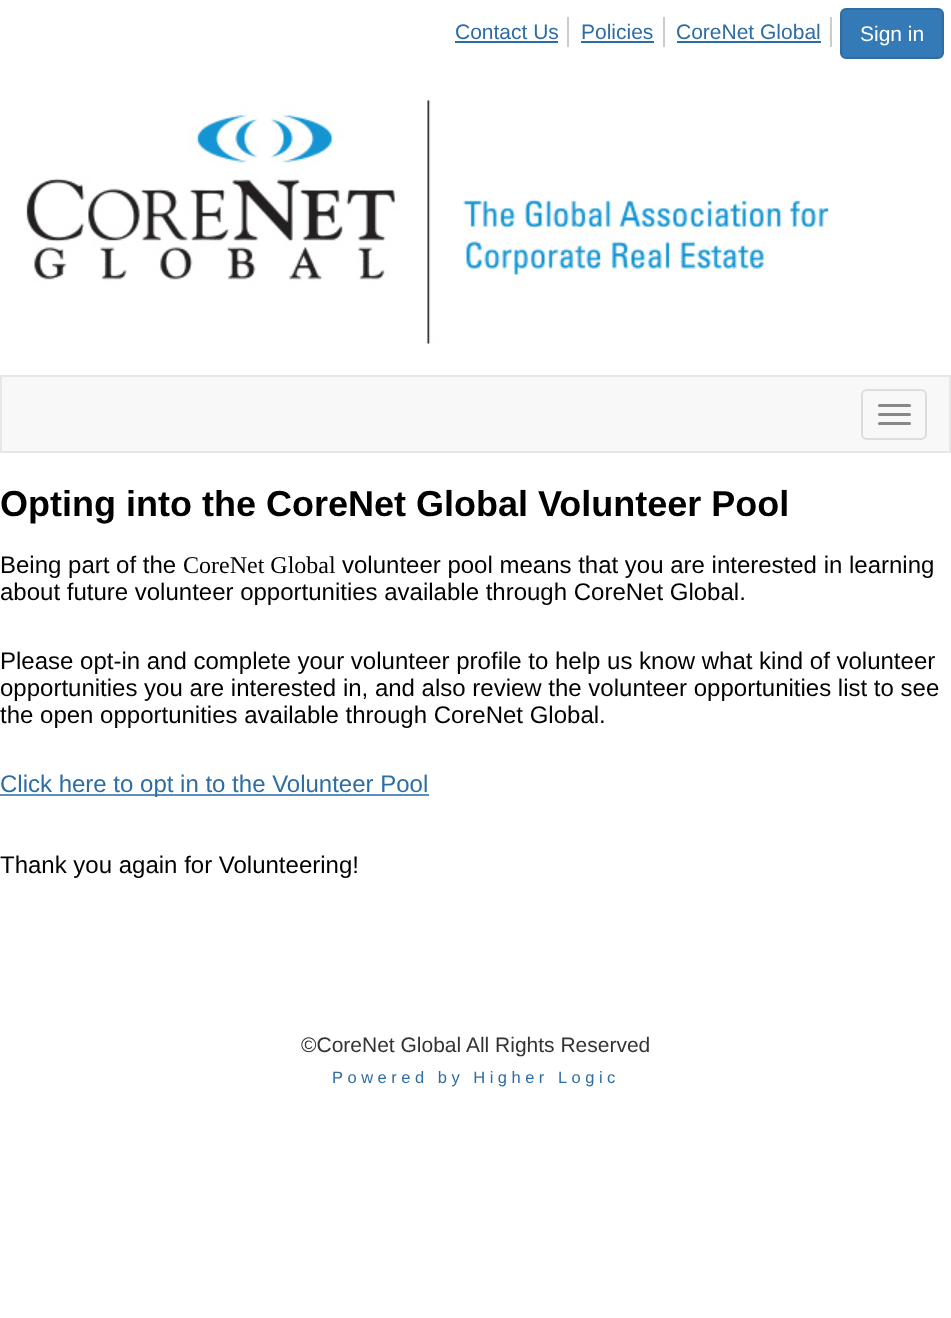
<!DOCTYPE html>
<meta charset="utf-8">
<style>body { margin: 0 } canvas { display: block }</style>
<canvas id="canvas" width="951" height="1318"></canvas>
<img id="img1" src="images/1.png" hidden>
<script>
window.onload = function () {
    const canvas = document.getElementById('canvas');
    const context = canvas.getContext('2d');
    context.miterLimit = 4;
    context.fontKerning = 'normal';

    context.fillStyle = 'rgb(255, 255, 255)';
    context.fillRect(0, 0, 951, 1318);
    context.fillStyle = 'rgb(204, 204, 204)';
    context.fillRect(567, 17, 2, 30);
    context.fillStyle = 'rgb(46, 109, 164)';
    context.fillRect(455, 41, 103, 2);
    context.fillStyle = 'rgb(204, 204, 204)';
    context.fillRect(663, 17, 2, 30);
    context.fillStyle = 'rgb(46, 109, 164)';
    context.fillRect(581, 41, 73, 2);
    context.fillStyle = 'rgb(204, 204, 204)';
    context.fillRect(830, 17, 2, 30);
    context.fillStyle = 'rgb(46, 109, 164)';
    context.fillRect(677, 41, 144, 2);
    context.fillStyle = 'rgb(51, 122, 183)';
    context.beginPath();
    context.roundRect(841, 9, 102, 49, 5);
    context.fill();
    context.strokeStyle = 'rgb(46, 109, 164)';
    context.lineWidth = 2;
    context.stroke();
    context.drawImage(document.getElementById('img1'), 26, 100, 803, 244);
    context.fillStyle = 'rgb(248, 248, 248)';
    context.beginPath();
    context.rect(1, 376, 949, 76);
    context.fill();
    context.strokeStyle = 'rgb(231, 231, 231)';
    context.stroke();
    context.beginPath();
    context.roundRect(862, 390, 64, 49, 5);
    context.strokeStyle = 'rgb(221, 221, 221)';
    context.stroke();
    context.fillStyle = 'rgb(136, 136, 136)';
    context.beginPath();
    context.roundRect(878, 404, 33, 3, 1.5);
    context.fill();
    context.beginPath();
    context.roundRect(878, 413, 33, 3, 1.5);
    context.fill();
    context.beginPath();
    context.roundRect(878, 422, 33, 3, 1.5);
    context.fill();
    context.fillStyle = 'rgb(91, 141, 192)';
    context.fillRect(0, 794, 429, 2);
    context.font = '21px Liberation Sans';
    context.fillStyle = 'rgb(46, 109, 164)';
    context.fillText('Contact Us', 455, 39);
    context.fillText('Policies', 581, 39);
    context.fillText('CoreNet Global', 676, 39);
    context.fillStyle = 'rgb(255, 255, 255)';
    context.fillText('Sign in', 860, 41);
    context.font = 'bold 36px Liberation Sans';
    context.fillStyle = 'rgb(0, 0, 0)';
    context.fillText('Opting into the CoreNet Global Volunteer Pool', 0, 516);
    context.font = '24px Liberation Sans';
    context.fillText('Being part of the', 0, 573);
    context.font = '24px Liberation Serif';
    context.fillText('CoreNet Global', 183, 573);
    context.font = '24px Liberation Sans';
    context.fillText('volunteer pool means that you are interested in learning', 342, 573);
    context.fillText('about future volunteer opportunities available through CoreNet Global.', 0, 600);
    context.fillText('Please opt-in and complete your volunteer profile to help us know what kind of volunteer', 0, 669);
    context.fillText('opportunities you are interested in, and also review the volunteer opportunities list to see', 0, 696);
    context.fillText('the open opportunities available through CoreNet Global.', 0, 723);
    context.fillStyle = 'rgb(46, 109, 164)';
    context.fillText('Click here to opt in to the Volunteer Pool', 0, 792);
    context.fillStyle = 'rgb(0, 0, 0)';
    context.fillText('Thank you again for Volunteering!', 0, 873);
    context.font = '21px Liberation Sans';
    context.fillStyle = 'rgb(51, 51, 51)';
    context.fillText('©CoreNet Global All Rights Reserved', 301, 1052);
    context.letterSpacing = '4.5px';
    context.font = '16.5px Liberation Sans';
    context.fillStyle = 'rgb(46, 109, 164)';
    context.fillText('Powered by Higher Logic', 332, 1083);
};
</script>
